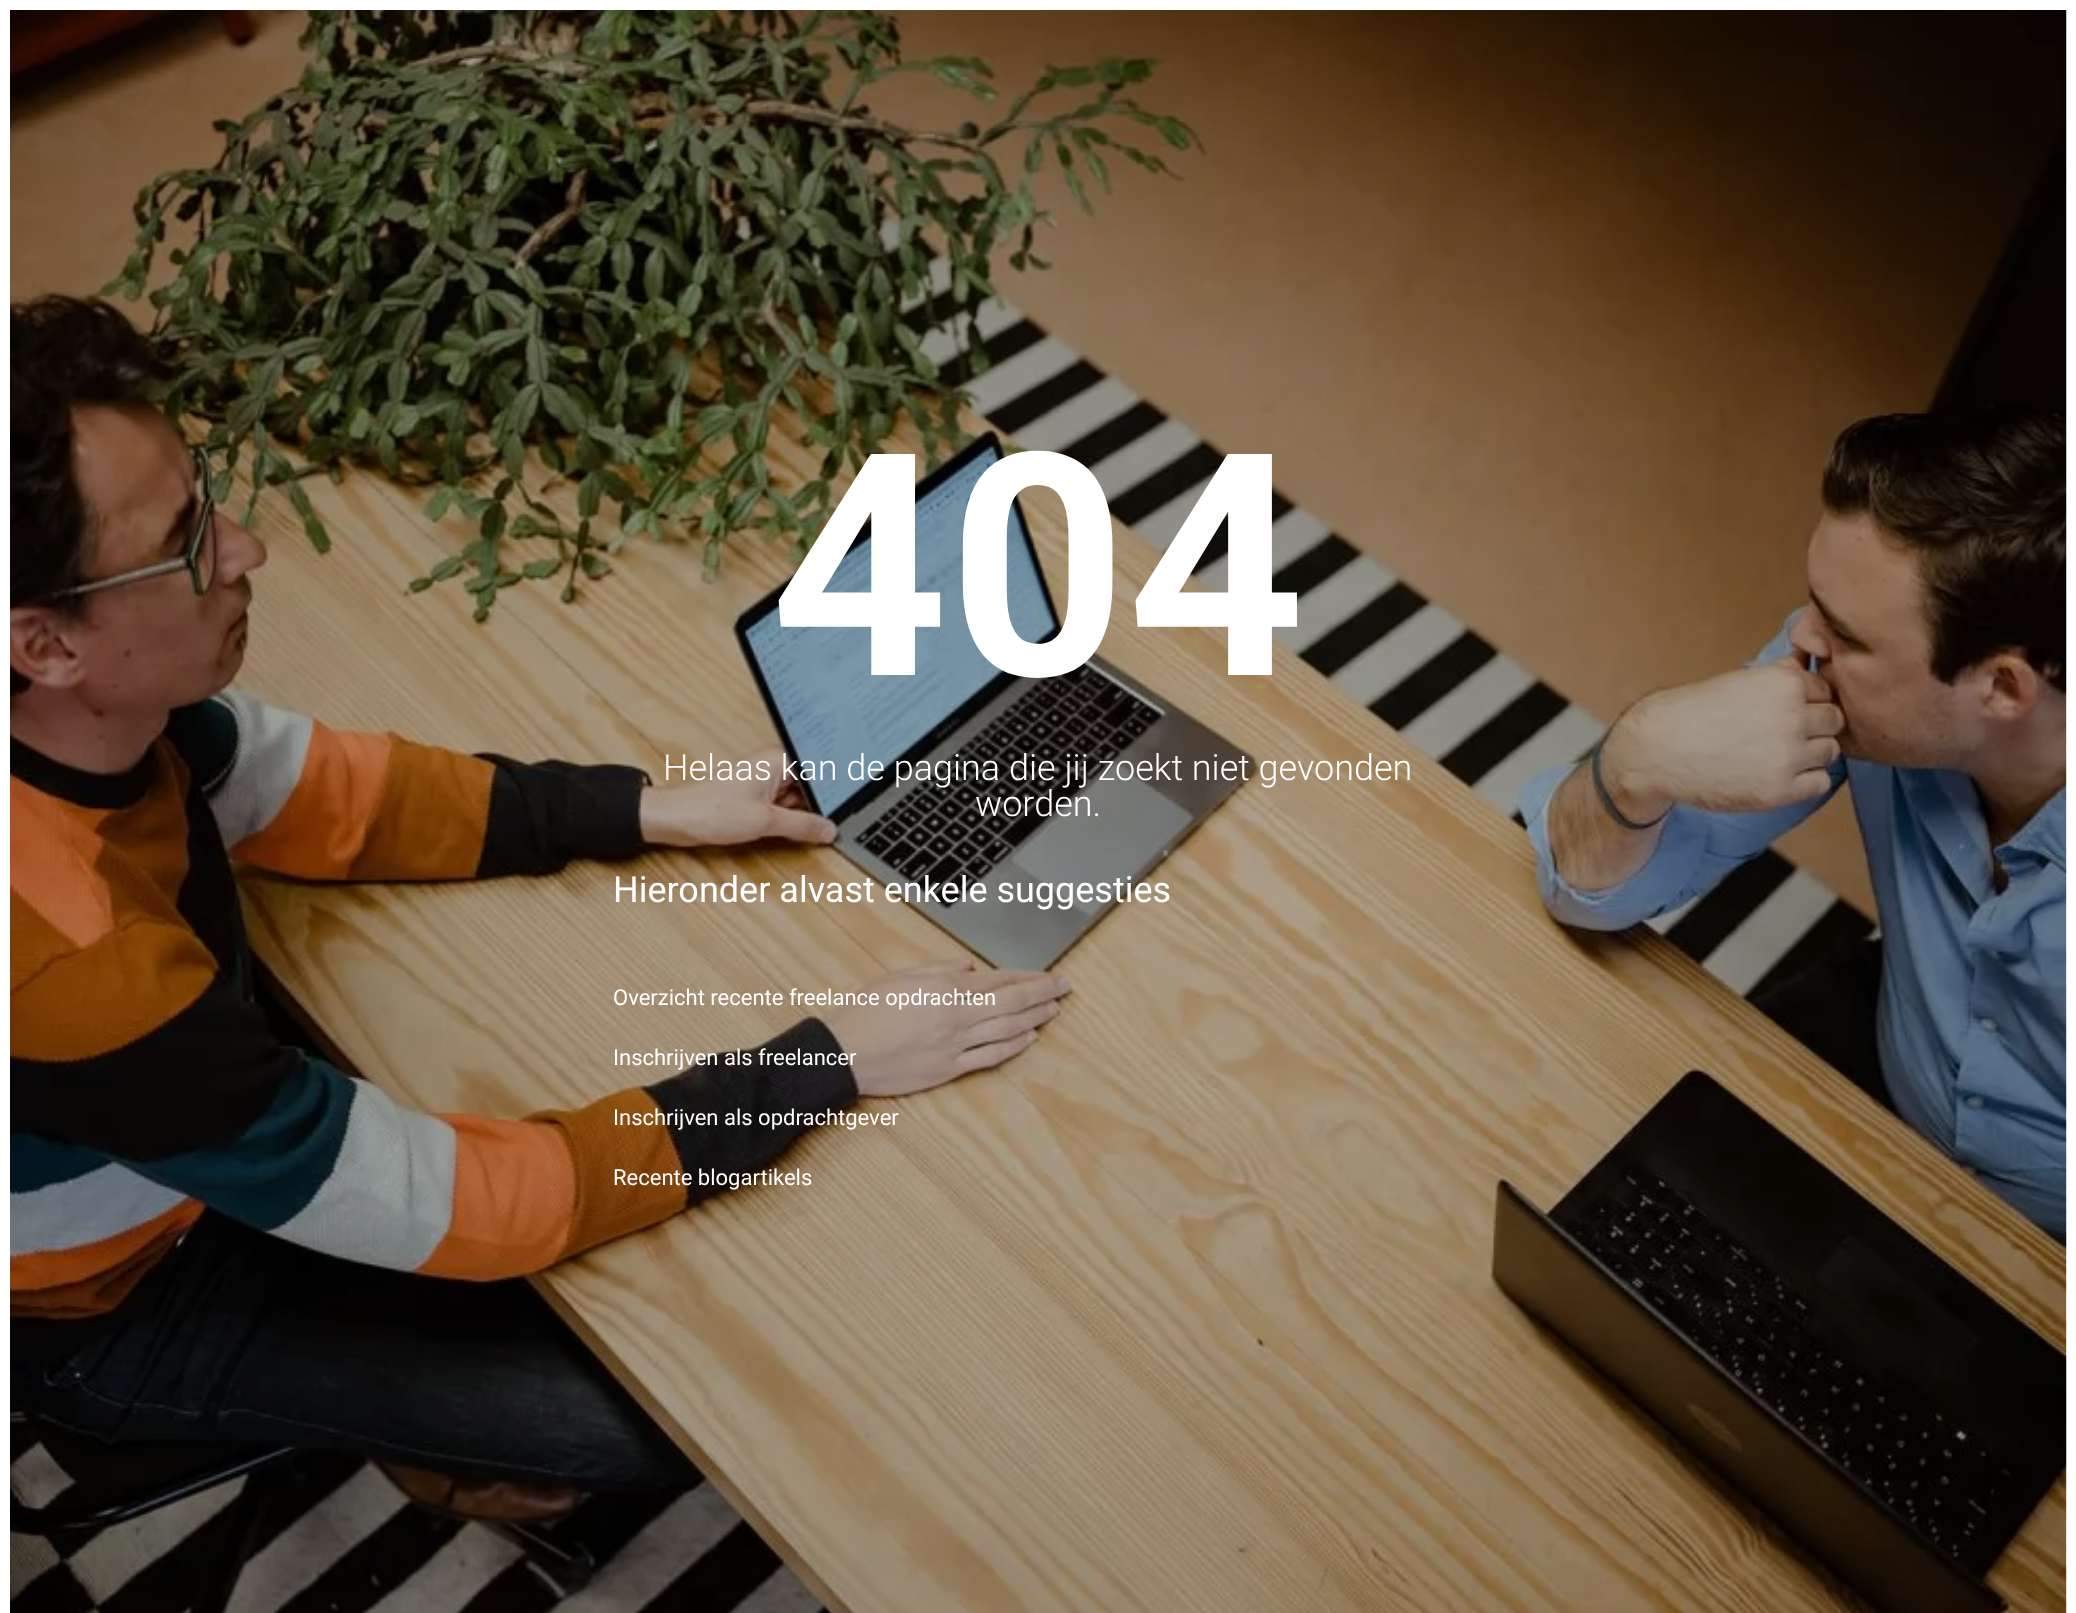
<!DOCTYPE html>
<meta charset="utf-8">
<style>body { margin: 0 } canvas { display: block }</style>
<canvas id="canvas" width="2076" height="1613"></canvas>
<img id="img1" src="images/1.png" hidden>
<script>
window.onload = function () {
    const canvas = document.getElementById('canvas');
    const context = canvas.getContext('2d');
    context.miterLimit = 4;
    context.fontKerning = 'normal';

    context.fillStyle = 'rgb(255, 255, 255)';
    context.fillRect(0, 0, 2076, 1613);
    context.drawImage(document.getElementById('img1'), 10, 10, 2057, 1603);
    context.font = 'bold 311px Roboto';
    context.fillText('404', 770, 675);
    context.font = '300 36px Roboto';
    context.fillText('Helaas kan de pagina die jij zoekt niet gevonden', 663, 780);
    context.fillText('worden.', 975, 816);
    context.font = '36px Roboto';
    context.fillText('Hieronder alvast enkele suggesties', 613, 902);
    context.font = '22px Roboto';
    context.fillText('Overzicht recente freelance opdrachten', 613, 1005);
    context.fillText('Inschrijven als freelancer', 613, 1065);
    context.fillText('Inschrijven als opdrachtgever', 613, 1125);
    context.fillText('Recente blogartikels', 613, 1185);
};
</script>
